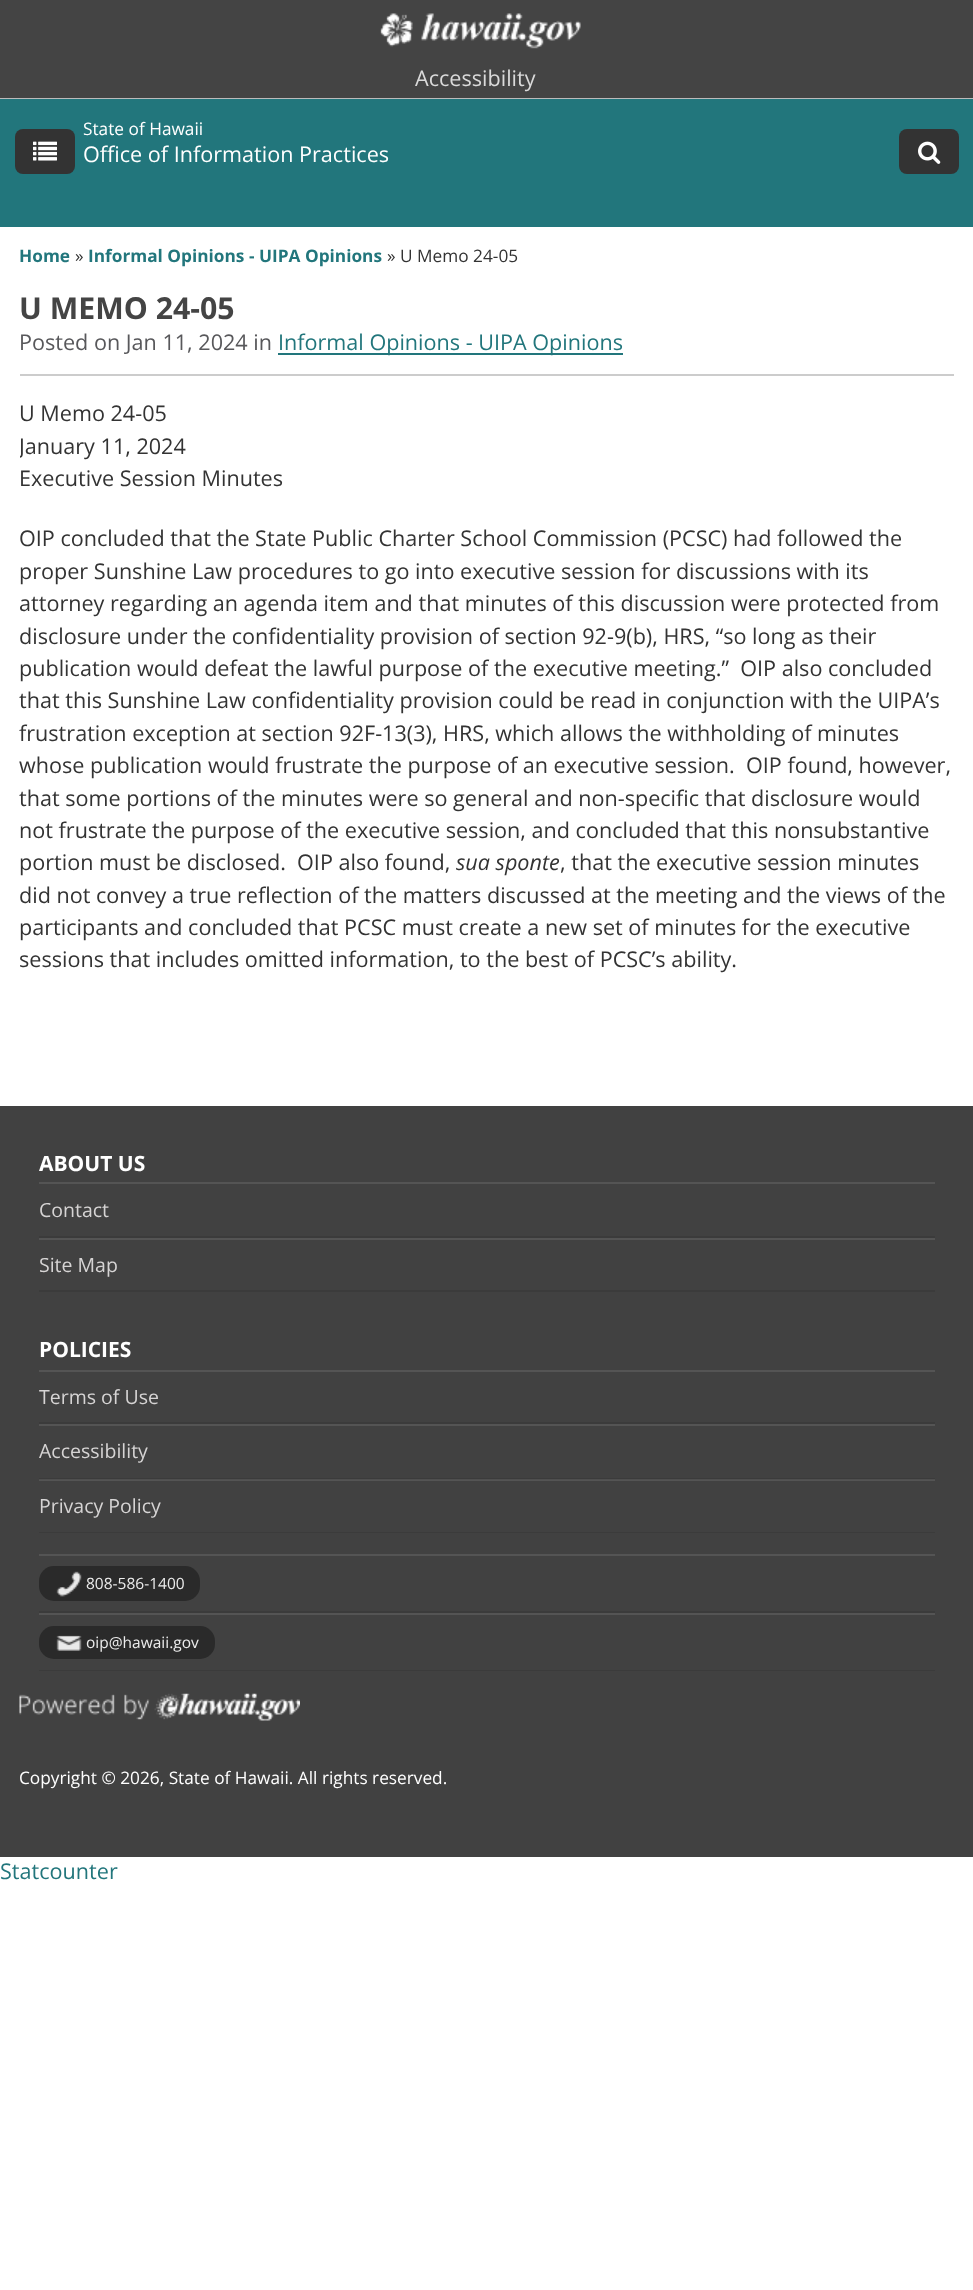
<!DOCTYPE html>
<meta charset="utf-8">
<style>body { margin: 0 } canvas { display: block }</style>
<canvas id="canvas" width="973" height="2290"></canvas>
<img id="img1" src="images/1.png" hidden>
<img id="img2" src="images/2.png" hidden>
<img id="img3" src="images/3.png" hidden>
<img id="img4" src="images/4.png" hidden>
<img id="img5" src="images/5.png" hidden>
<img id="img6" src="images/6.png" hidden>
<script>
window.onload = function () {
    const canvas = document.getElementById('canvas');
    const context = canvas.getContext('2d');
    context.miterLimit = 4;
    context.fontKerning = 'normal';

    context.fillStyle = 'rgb(255, 255, 255)';
    context.fillRect(0, 0, 973, 2290);
    context.fillStyle = 'rgb(68, 68, 68)';
    context.fillRect(0, 0, 973, 98);
    context.fillStyle = 'rgb(187, 187, 187)';
    context.fillRect(0, 98, 973, 1);
    context.drawImage(document.getElementById('img1'), 380, 13, 201, 36);
    context.fillStyle = 'rgb(34, 118, 124)';
    context.fillRect(0, 99, 973, 128);
    context.fillStyle = 'rgb(51, 51, 51)';
    context.beginPath();
    context.roundRect(15, 129, 60, 45, 8);
    context.fill();
    context.drawImage(document.getElementById('img2'), 33, 141, 24, 20);
    context.beginPath();
    context.roundRect(899, 129, 60, 45, 8);
    context.fill();
    context.drawImage(document.getElementById('img3'), 918, 141, 23, 23);
    context.fillStyle = 'rgb(204, 204, 204)';
    context.fillRect(20, 374, 934, 2);
    context.fillStyle = 'rgb(34, 118, 124)';
    context.fillRect(278, 353, 345, 2);
    context.fillStyle = 'rgb(65, 65, 65)';
    context.fillRect(0, 1106, 973, 751);
    context.fillStyle = 'rgb(84, 84, 84)';
    context.fillRect(39, 1480, 896, 1);
    context.fillRect(39, 1182, 896, 2);
    context.fillStyle = 'rgb(59, 59, 59)';
    context.fillRect(39, 1236, 896, 2);
    context.fillStyle = 'rgb(84, 84, 84)';
    context.fillRect(39, 1238, 896, 2);
    context.fillStyle = 'rgb(59, 59, 59)';
    context.fillRect(39, 1290, 896, 2);
    context.fillStyle = 'rgb(84, 84, 84)';
    context.fillRect(39, 1370, 896, 2);
    context.fillStyle = 'rgb(59, 59, 59)';
    context.fillRect(39, 1422, 896, 2);
    context.fillStyle = 'rgb(84, 84, 84)';
    context.fillRect(39, 1424, 896, 2);
    context.fillStyle = 'rgb(59, 59, 59)';
    context.fillRect(39, 1478, 896, 1);
    context.fillStyle = 'rgb(79, 79, 79)';
    context.fillRect(39, 1479, 896, 1);
    context.fillStyle = 'rgb(59, 59, 59)';
    context.fillRect(39, 1532, 896, 1);
    context.fillStyle = 'rgb(84, 84, 84)';
    context.fillRect(39, 1554, 896, 2);
    context.fillStyle = 'rgb(59, 59, 59)';
    context.fillRect(39, 1611, 896, 2);
    context.fillStyle = 'rgb(42, 42, 42)';
    context.beginPath();
    context.roundRect(39, 1566, 161, 35, 15);
    context.fill();
    context.drawImage(document.getElementById('img4'), 56, 1571, 26, 26);
    context.fillStyle = 'rgb(84, 84, 84)';
    context.fillRect(39, 1613, 896, 2);
    context.fillStyle = 'rgb(59, 59, 59)';
    context.fillRect(39, 1670, 896, 1);
    context.fillStyle = 'rgb(42, 42, 42)';
    context.beginPath();
    context.roundRect(39, 1626, 176, 33, 15);
    context.fill();
    context.drawImage(document.getElementById('img5'), 56, 1635, 26, 16);
    context.drawImage(document.getElementById('img6'), 19, 1693, 281, 28);
    context.font = '21.6px Open Sans';
    context.fillStyle = 'rgb(218, 218, 218)';
    context.fillText('Accessibility', 415, 86);
    context.font = '17.25px Open Sans';
    context.fillStyle = 'rgb(255, 255, 255)';
    context.fillText('State of Hawaii', 83, 135);
    context.font = '21.6px Open Sans';
    context.fillText('Office of Information Practices', 83, 162);
    context.font = 'bold 17.25px Open Sans';
    context.fillStyle = 'rgb(34, 118, 124)';
    context.fillText('Home', 19, 262);
    context.font = '17.25px Open Sans';
    context.fillStyle = 'rgb(51, 51, 51)';
    context.fillText('»', 75, 262);
    context.font = 'bold 17.25px Open Sans';
    context.fillStyle = 'rgb(34, 118, 124)';
    context.fillText('Informal Opinions - UIPA Opinions', 88, 262);
    context.font = '17.25px Open Sans';
    context.fillStyle = 'rgb(51, 51, 51)';
    context.fillText('» U Memo 24-05', 387, 262);
    context.font = 'bold 30.25px Open Sans';
    context.fillStyle = 'rgb(68, 68, 68)';
    context.fillText('U MEMO 24-05', 19, 319);
    context.font = '21.6px Open Sans';
    context.fillStyle = 'rgb(88, 88, 91)';
    context.fillText('Posted on Jan 11, 2024 in', 19, 350);
    context.fillStyle = 'rgb(34, 118, 124)';
    context.fillText('Informal Opinions - UIPA Opinions', 278, 350);
    context.fillStyle = 'rgb(51, 51, 51)';
    context.fillText('U Memo 24-05', 19, 421);
    context.save();
    context.beginPath();
    context.rect(20, 246, 934, 819);
    context.clip();
    context.fillText('January 11, 2024', 19, 454);
    context.restore();
    context.fillText('Executive Session Minutes', 19, 486);
    context.fillText('OIP concluded that the State Public Charter School Commission (PCSC) had followed the', 19, 546);
    context.fillText('proper Sunshine Law procedures to go into executive session for discussions with its', 19, 579);
    context.fillText('attorney regarding an agenda item and that minutes of this discussion were protected from', 19, 611);
    context.fillText('disclosure under the confidentiality provision of section 92-9(b), HRS, “so long as their', 19, 644);
    context.fillText('publication would defeat the lawful purpose of the executive meeting.”  OIP also concluded', 19, 676);
    context.fillText('that this Sunshine Law confidentiality provision could be read in conjunction with the UIPA’s', 19, 708);
    context.fillText('frustration exception at section 92F-13(3), HRS, which allows the withholding of minutes', 19, 741);
    context.fillText('whose publication would frustrate the purpose of an executive session.  OIP found, however,', 19, 773);
    context.fillText('that some portions of the minutes were so general and non-specific that disclosure would', 19, 806);
    context.fillText('not frustrate the purpose of the executive session, and concluded that this nonsubstantive', 19, 838);
    context.fillText('portion must be disclosed.  OIP also found,', 19, 870);
    context.font = 'italic 21.6px Open Sans';
    context.fillText('sua sponte', 456, 870);
    context.font = '21.6px Open Sans';
    context.fillText(', that the executive session minutes', 560, 870);
    context.fillText('did not convey a true reflection of the matters discussed at the meeting and the views of the', 19, 903);
    context.fillText('participants and concluded that PCSC must create a new set of minutes for the executive', 19, 935);
    context.fillText('sessions that includes omitted information, to the best of PCSC’s ability.', 19, 967);
    context.font = 'bold 21px Open Sans';
    context.fillStyle = 'rgb(255, 255, 255)';
    context.fillText('ABOUT US', 39, 1171);
    context.font = '19.5px Open Sans';
    context.fillStyle = 'rgb(214, 212, 212)';
    context.fillText('Contact', 39, 1217);
    context.fillText('Site Map', 39, 1272);
    context.font = 'bold 21px Open Sans';
    context.fillStyle = 'rgb(255, 255, 255)';
    context.fillText('POLICIES', 39, 1357);
    context.font = '19.5px Open Sans';
    context.fillStyle = 'rgb(214, 212, 212)';
    context.fillText('Terms of Use', 39, 1404);
    context.fillText('Accessibility', 39, 1458);
    context.fillText('Privacy Policy', 39, 1513);
    context.font = '15.5px Open Sans';
    context.fillStyle = 'rgb(236, 236, 236)';
    context.fillText('808-586-1400', 86, 1589);
    context.fillText('oip@hawaii.gov', 86, 1648);
    context.font = '17.25px Open Sans';
    context.fillStyle = 'rgb(255, 255, 255)';
    context.fillText('Copyright © 2026, State of Hawaii. All rights reserved.', 19, 1784);
    context.font = '21.6px Open Sans';
    context.fillStyle = 'rgb(34, 118, 124)';
    context.fillText('Statcounter', 0, 1879);
};
</script>
